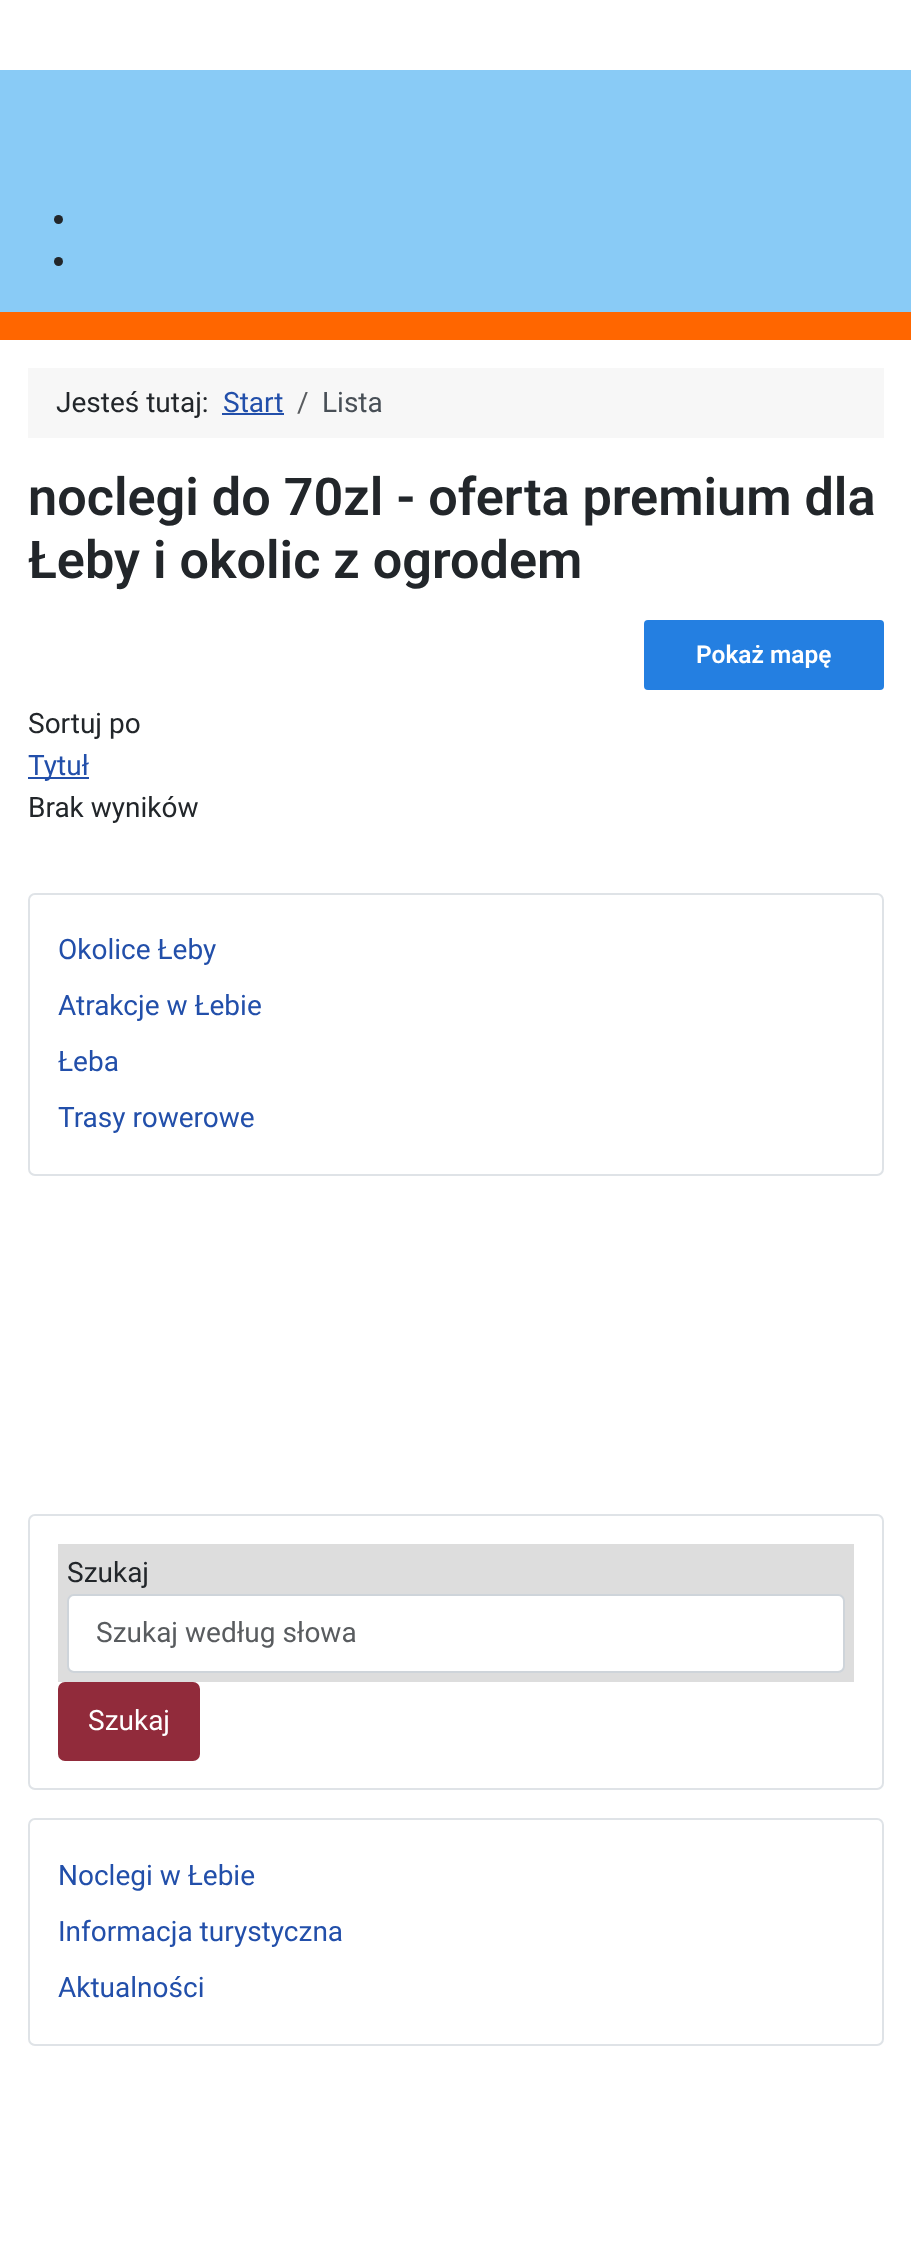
<!DOCTYPE html>
<meta charset="utf-8">
<style>body { margin: 0 } canvas { display: block }</style>
<canvas id="canvas" width="911" height="2262"></canvas>
<script>
window.onload = function () {
    const canvas = document.getElementById('canvas');
    const context = canvas.getContext('2d');
    context.miterLimit = 4;
    context.fontKerning = 'normal';

    context.fillStyle = 'rgb(255, 255, 255)';
    context.fillRect(0, 0, 911, 2262);
    context.fillStyle = 'rgb(137, 203, 246)';
    context.fillRect(0, 70, 911, 242);
    context.fillStyle = 'rgb(34, 38, 42)';
    context.beginPath();
    context.arc(58.5, 219.5, 4.5, 0, 2 * Math.PI);
    context.fill();
    context.beginPath();
    context.arc(58.5, 261.5, 4.5, 0, 2 * Math.PI);
    context.fill();
    context.fillStyle = 'rgb(255, 102, 0)';
    context.fillRect(0, 312, 911, 28);
    context.fillStyle = 'rgb(247, 247, 247)';
    context.fillRect(28, 368, 856, 70);
    context.fillStyle = 'rgb(34, 79, 170)';
    context.fillRect(222, 413, 62, 2);
    context.fillStyle = 'rgb(36, 127, 225)';
    context.beginPath();
    context.roundRect(644, 620, 240, 70, 4);
    context.fill();
    context.fillStyle = 'rgb(34, 79, 170)';
    context.fillRect(28, 777, 61, 2);
    context.beginPath();
    context.roundRect(29, 894, 854, 281, 6);
    context.strokeStyle = 'rgb(223, 227, 231)';
    context.lineWidth = 2;
    context.stroke();
    context.beginPath();
    context.roundRect(29, 1515, 854, 274, 6);
    context.stroke();
    context.fillStyle = 'rgb(221, 221, 221)';
    context.fillRect(58, 1544, 796, 138);
    context.fillStyle = 'rgb(255, 255, 255)';
    context.beginPath();
    context.roundRect(68, 1595, 776, 77, 6);
    context.fill();
    context.strokeStyle = 'rgb(206, 212, 218)';
    context.stroke();
    context.fillStyle = 'rgb(145, 43, 59)';
    context.beginPath();
    context.roundRect(59, 1683, 140, 77, 6);
    context.fill();
    context.strokeStyle = 'rgb(145, 43, 59)';
    context.stroke();
    context.beginPath();
    context.roundRect(29, 1819, 854, 226, 6);
    context.strokeStyle = 'rgb(223, 227, 231)';
    context.stroke();
    context.font = '28px Roboto';
    context.fillStyle = 'rgb(34, 38, 42)';
    context.fillText('Jesteś tutaj:', 56, 412);
    context.fillStyle = 'rgb(34, 79, 170)';
    context.fillText('Start', 223, 412);
    context.fillStyle = 'rgb(89, 92, 95)';
    context.fillText('/', 297, 412);
    context.fillStyle = 'rgb(72, 79, 86)';
    context.fillText('Lista', 322, 412);
    context.font = '600 52.2px Roboto';
    context.fillStyle = 'rgb(34, 38, 42)';
    context.fillText('noclegi do 70zl - oferta premium dla', 28, 515);
    context.fillText('Łeby i okolic z ogrodem', 28, 578);
    context.font = '600 24.5px Roboto';
    context.fillStyle = 'rgb(255, 255, 255)';
    context.fillText('Pokaż mapę', 696, 663);
    context.font = '28px Roboto';
    context.fillStyle = 'rgb(34, 38, 42)';
    context.fillText('Sortuj po', 28, 733);
    context.fillStyle = 'rgb(34, 79, 170)';
    context.fillText('Tytuł', 28, 775);
    context.fillStyle = 'rgb(34, 38, 42)';
    context.fillText('Brak wyników', 28, 817);
    context.fillStyle = 'rgb(34, 79, 170)';
    context.fillText('Okolice Łeby', 58, 959);
    context.fillText('Atrakcje w Łebie', 58, 1015);
    context.fillText('Łeba', 58, 1071);
    context.fillText('Trasy rowerowe', 58, 1127);
    context.fillStyle = 'rgb(34, 38, 42)';
    context.fillText('Szukaj', 67, 1582);
    context.fillStyle = 'rgb(89, 92, 95)';
    context.fillText('Szukaj według słowa', 96, 1642);
    context.fillStyle = 'rgb(255, 255, 255)';
    context.fillText('Szukaj', 88, 1730);
    context.fillStyle = 'rgb(34, 79, 170)';
    context.fillText('Noclegi w Łebie', 58, 1885);
    context.fillText('Informacja turystyczna', 58, 1941);
    context.fillText('Aktualności', 58, 1997);
};
</script>
